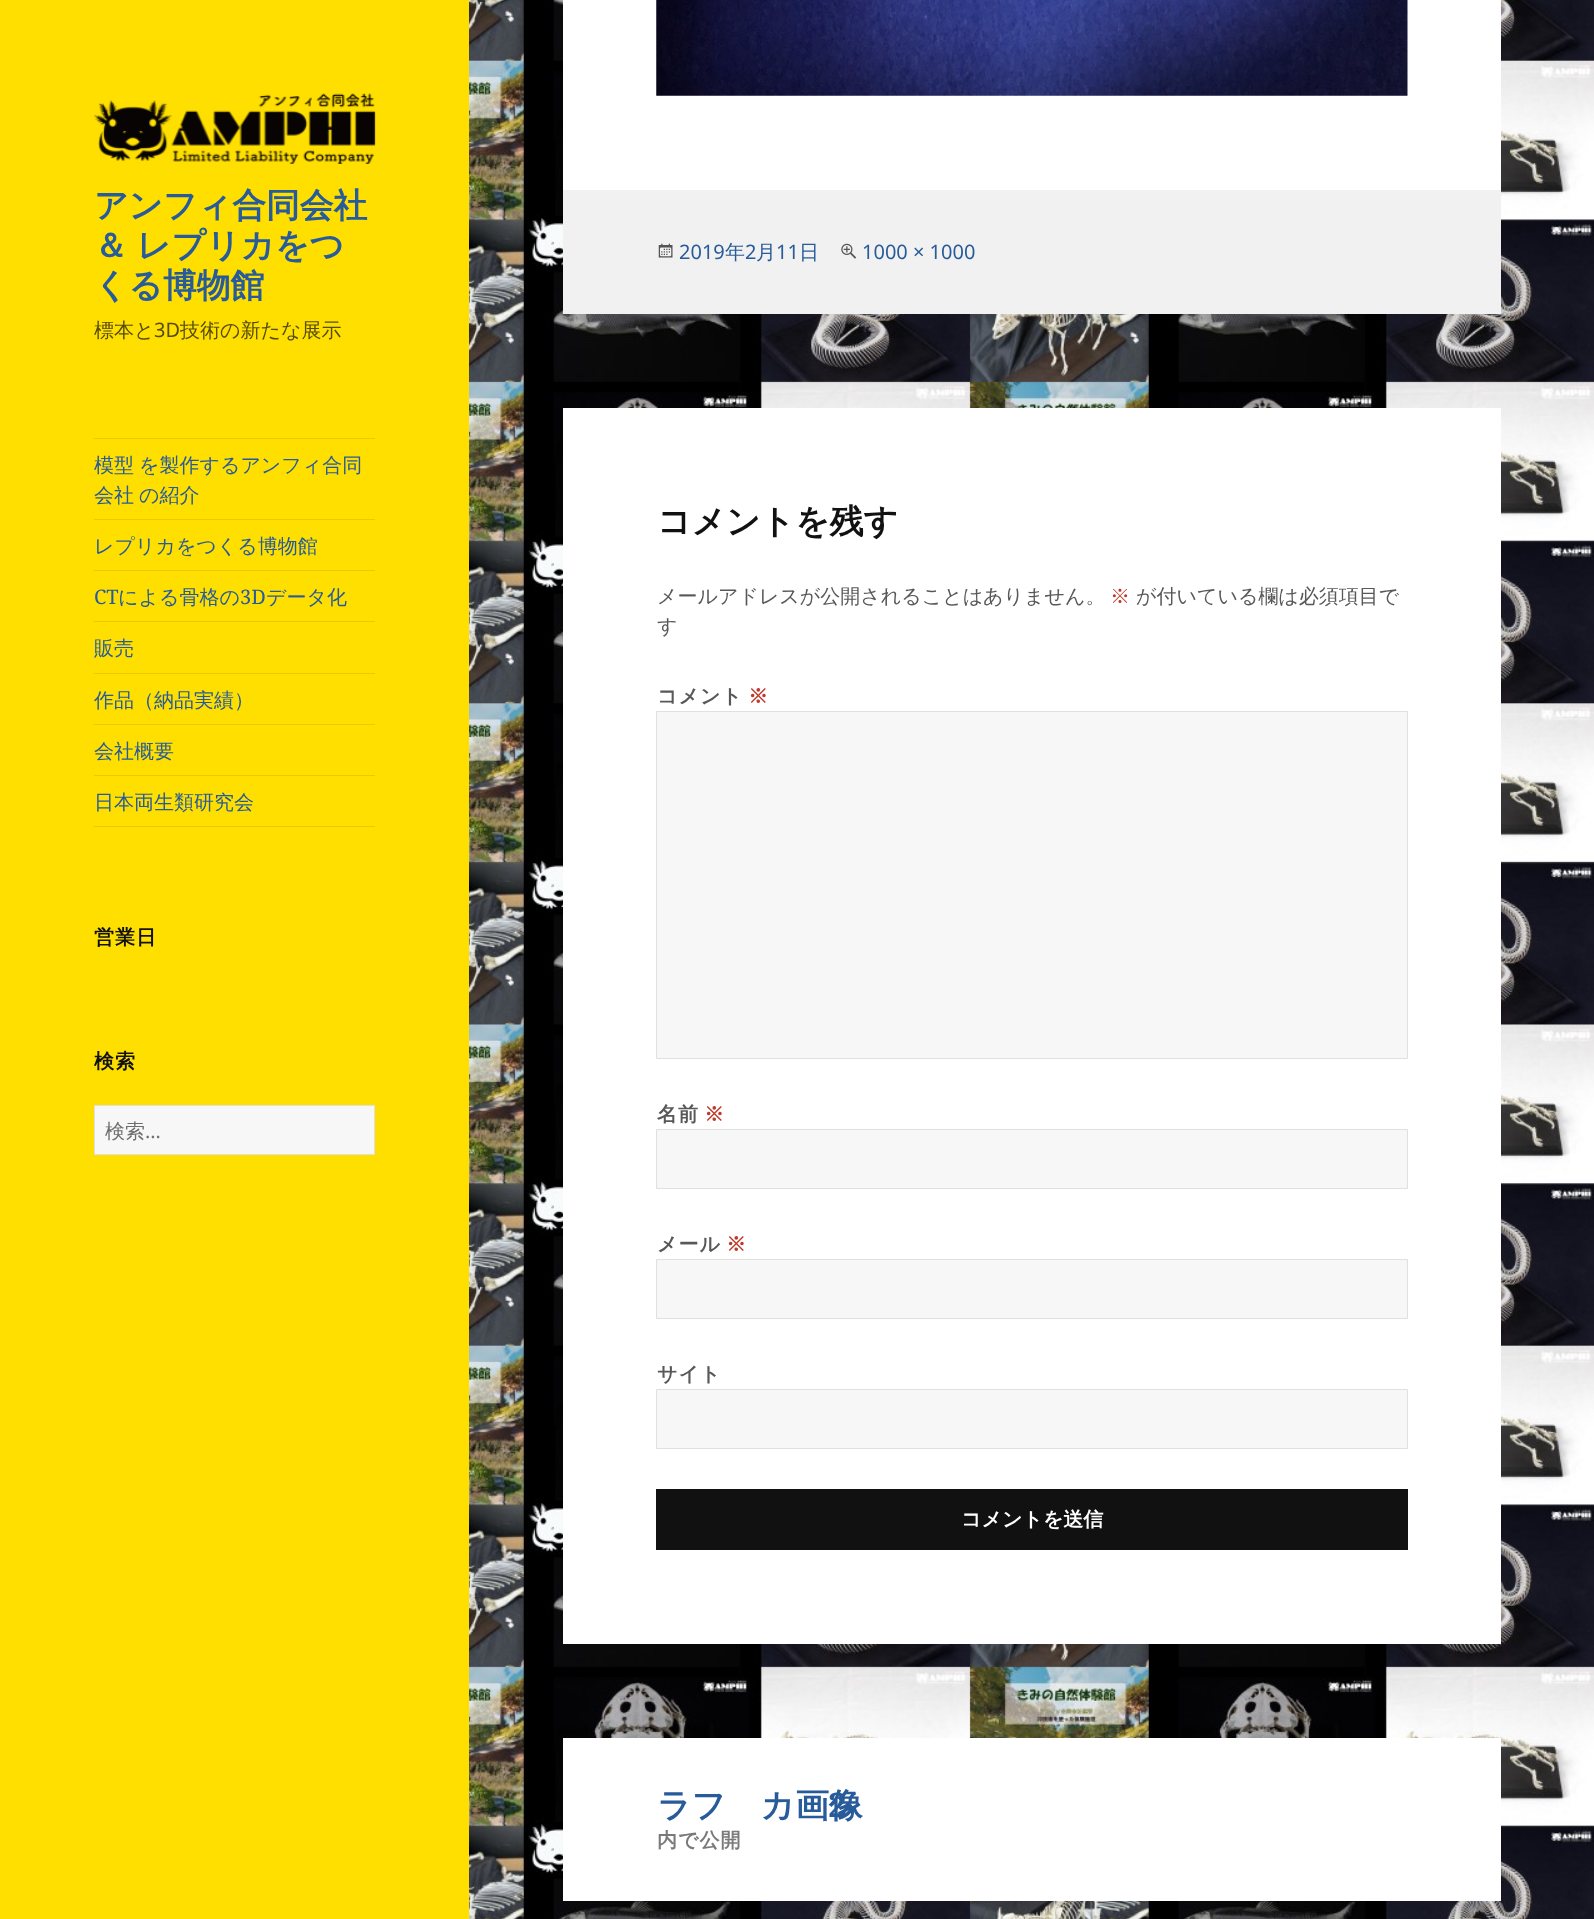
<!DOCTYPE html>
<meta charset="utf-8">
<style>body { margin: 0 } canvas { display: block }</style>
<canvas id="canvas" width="1594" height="1919"></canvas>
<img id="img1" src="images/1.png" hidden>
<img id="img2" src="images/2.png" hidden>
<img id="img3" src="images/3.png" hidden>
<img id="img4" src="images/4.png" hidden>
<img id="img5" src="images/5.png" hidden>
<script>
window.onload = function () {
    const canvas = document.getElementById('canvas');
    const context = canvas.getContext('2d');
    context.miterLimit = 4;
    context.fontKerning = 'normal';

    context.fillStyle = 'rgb(255, 255, 255)';
    context.fillRect(0, 0, 1594, 1919);
    context.drawImage(document.getElementById('img1'), 469, 0, 1125, 1919);
    context.fillStyle = 'rgb(255, 223, 0)';
    context.fillRect(0, 0, 469, 1919);
    context.drawImage(document.getElementById('img2'), 93, 93, 283, 71);
    context.fillStyle = 'rgb(231, 202, 2)';
    context.fillRect(94, 438, 281, 1);
    context.fillRect(94, 826, 281, 1);
    context.fillRect(94, 519, 281, 1);
    context.fillRect(94, 570, 281, 1);
    context.fillRect(94, 621, 281, 1);
    context.fillRect(94, 673, 281, 1);
    context.fillRect(94, 724, 281, 1);
    context.fillRect(94, 775, 281, 1);
    context.fillStyle = 'rgb(247, 247, 247)';
    context.beginPath();
    context.rect(94.5, 1105.5, 280, 49);
    context.fill();
    context.strokeStyle = 'rgb(224, 224, 224)';
    context.stroke();
    context.fillStyle = 'rgb(255, 255, 255)';
    context.fillRect(563, 0, 938, 190);
    context.drawImage(document.getElementById('img3'), 656, 0, 752, 96);
    context.fillStyle = 'rgb(241, 241, 241)';
    context.fillRect(563, 190, 938, 124);
    context.drawImage(document.getElementById('img4'), 658, 243, 15, 15);
    context.drawImage(document.getElementById('img5'), 841, 243, 16, 16);
    context.fillStyle = 'rgb(255, 255, 255)';
    context.fillRect(563, 408, 938, 1236);
    context.fillStyle = 'rgb(247, 247, 247)';
    context.beginPath();
    context.rect(656.5, 711.5, 751, 347);
    context.fill();
    context.stroke();
    context.beginPath();
    context.rect(656.5, 1129.5, 751, 59);
    context.fill();
    context.stroke();
    context.beginPath();
    context.rect(656.5, 1259.5, 751, 59);
    context.fill();
    context.stroke();
    context.beginPath();
    context.rect(656.5, 1389.5, 751, 59);
    context.fill();
    context.stroke();
    context.fillStyle = 'rgb(17, 17, 17)';
    context.fillRect(656, 1489, 752, 61);
    context.fillStyle = 'rgb(255, 255, 255)';
    context.fillRect(563, 1738, 938, 163);
    context.font = 'bold 33.75px WenQuanYi Zen Hei';
    context.fillStyle = 'rgb(40, 91, 154)';
    context.fillText('アンフィ合同会社', 94, 217);
    context.wordSpacing = '-1px';
    context.fillText('＆ レプリカをつ', 94, 257);
    context.wordSpacing = '0px';
    context.fillText('くる博物館', 94, 297);
    context.font = '500 20px WenQuanYi Zen Hei';
    context.fillStyle = 'rgb(87, 77, 11)';
    context.fillText('標本と', 94, 337);
    context.font = '20px Noto Sans';
    context.fillText('3D', 154, 337);
    context.font = '500 20px WenQuanYi Zen Hei';
    context.fillText('技術の新たな展示', 180, 337);
    context.wordSpacing = '-1px';
    context.fillStyle = 'rgb(40, 91, 154)';
    context.fillText('模型 を製作するアンフィ合同', 94, 472);
    context.fillText('会社 の紹介', 94, 502);
    context.wordSpacing = '0px';
    context.fillText('レプリカをつくる博物館', 94, 553);
    context.font = '20px Noto Serif';
    context.fillText('CT', 94, 604);
    context.font = '500 20px WenQuanYi Zen Hei';
    context.fillText('による骨格の', 118, 604);
    context.font = '20px Noto Serif';
    context.fillText('3D', 240, 604);
    context.font = '500 20px WenQuanYi Zen Hei';
    context.fillText('データ化', 266, 604);
    context.fillText('販売', 94, 655);
    context.fillText('作品（納品実績）', 94, 707);
    context.fillText('会社概要', 94, 758);
    context.fillText('日本両生類研究会', 94, 809);
    context.letterSpacing = '1px';
    context.font = 'bold 20px WenQuanYi Zen Hei';
    context.fillStyle = 'rgb(17, 17, 17)';
    context.fillText('営業日', 94, 944);
    context.fillText('検索', 94, 1068);
    context.letterSpacing = '0px';
    context.font = '500 20px WenQuanYi Zen Hei';
    context.fillStyle = 'rgb(110, 110, 110)';
    context.fillText('検索', 105, 1138);
    context.font = '20px Noto Sans';
    context.fillText('…', 145, 1138);
    context.fillStyle = 'rgb(40, 91, 154)';
    context.fillText('2019', 679, 259);
    context.font = '500 20px WenQuanYi Zen Hei';
    context.fillText('年', 725, 259);
    context.font = '20px Noto Sans';
    context.fillText('2', 745, 259);
    context.font = '500 20px WenQuanYi Zen Hei';
    context.fillText('月', 756, 259);
    context.font = '20px Noto Sans';
    context.fillText('11', 776, 259);
    context.font = '500 20px WenQuanYi Zen Hei';
    context.fillText('日', 799, 259);
    context.font = '20px Noto Sans';
    context.fillText('1000 × 1000', 862, 259);
    context.font = 'bold 33.75px WenQuanYi Zen Hei';
    context.fillStyle = 'rgb(17, 17, 17)';
    context.fillText('コメントを残す', 657, 533);
    context.font = '500 20px WenQuanYi Zen Hei';
    context.fillStyle = 'rgb(88, 88, 88)';
    context.fillText('メールアドレスが公開されることはありません。', 657, 603);
    context.fillStyle = 'rgb(192, 57, 43)';
    context.fillText('※', 1110, 603);
    context.fillStyle = 'rgb(88, 88, 88)';
    context.fillText('が付いている欄は必須項目で', 1136, 603);
    context.fillText('す', 657, 633);
    context.letterSpacing = '1px';
    context.font = 'bold 20px WenQuanYi Zen Hei';
    context.fillText('コメント', 657, 703);
    context.fillStyle = 'rgb(192, 57, 43)';
    context.fillText('※', 748, 703);
    context.fillStyle = 'rgb(88, 88, 88)';
    context.fillText('名前', 657, 1121);
    context.fillStyle = 'rgb(192, 57, 43)';
    context.fillText('※', 704, 1121);
    context.fillStyle = 'rgb(88, 88, 88)';
    context.fillText('メール', 657, 1251);
    context.fillStyle = 'rgb(192, 57, 43)';
    context.fillText('※', 726, 1251);
    context.fillStyle = 'rgb(88, 88, 88)';
    context.fillText('サイト', 657, 1381);
    context.letterSpacing = '0px';
    context.fillStyle = 'rgb(255, 255, 255)';
    context.fillText('コメントを送信', 961, 1526);
    context.font = 'bold 33.75px WenQuanYi Zen Hei';
    context.fillStyle = 'rgb(40, 91, 154)';
    context.fillText('ラブカ画像', 657, 1817);
    context.font = 'bold 33.75px Noto Serif';
    context.fillText('2', 828, 1817);
    context.letterSpacing = '1px';
    context.font = 'bold 20px WenQuanYi Zen Hei';
    context.fillStyle = 'rgb(122, 122, 122)';
    context.fillText('内で公開', 657, 1847);
};
</script>
